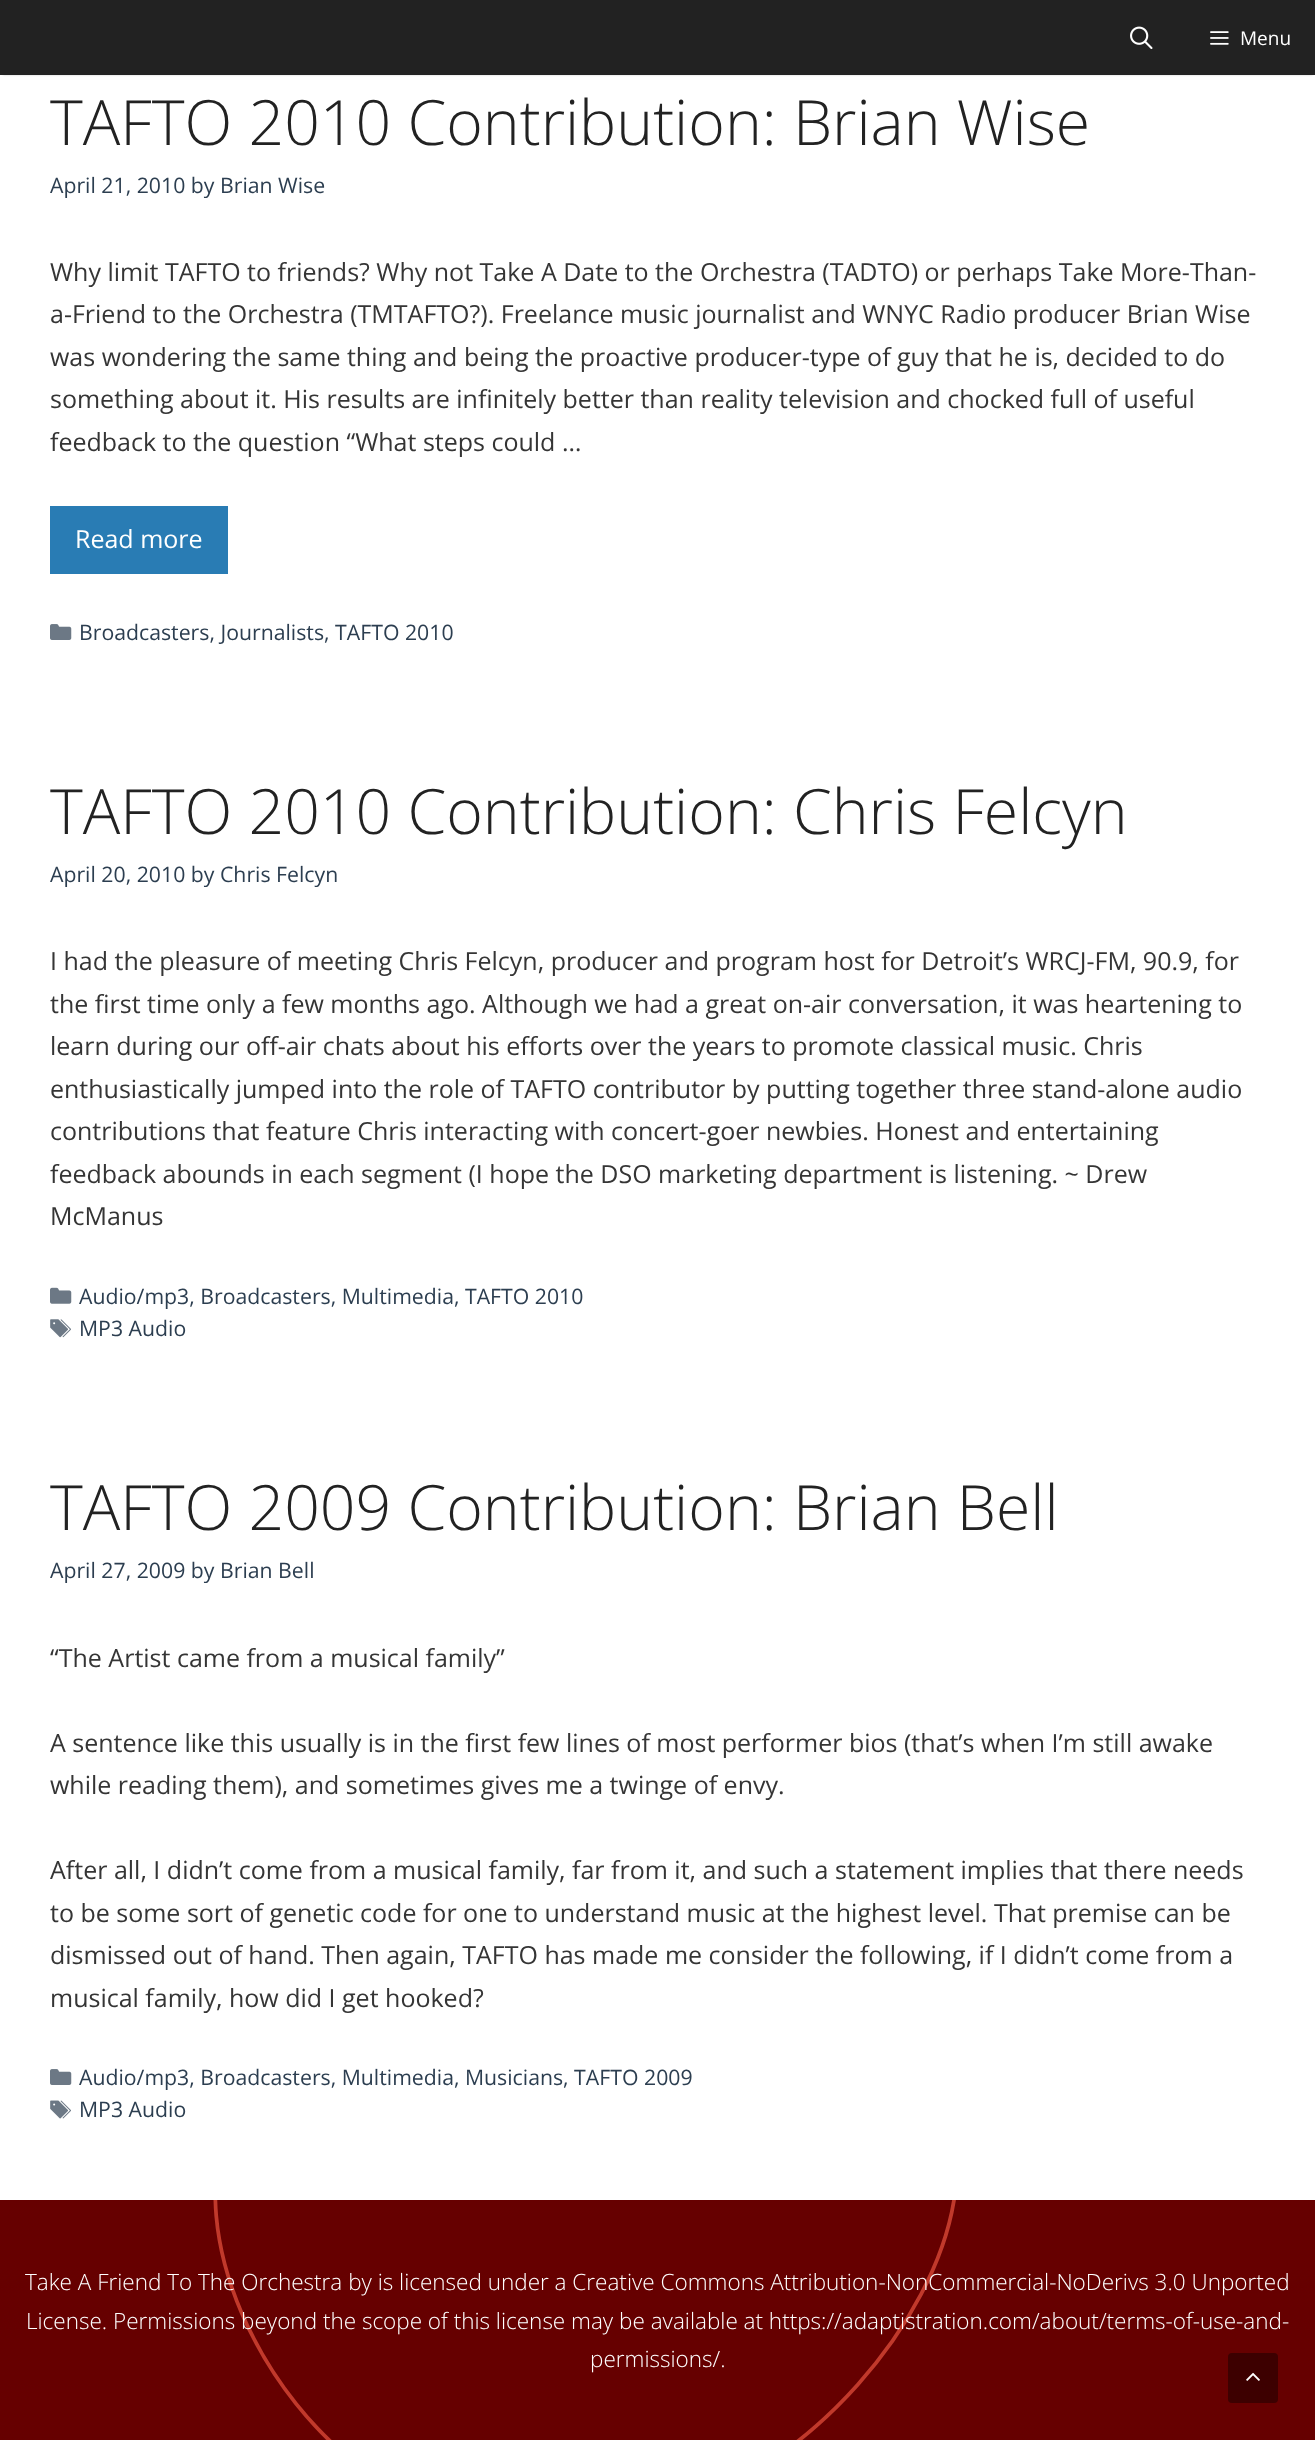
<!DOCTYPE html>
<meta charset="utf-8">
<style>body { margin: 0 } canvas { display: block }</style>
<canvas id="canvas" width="1315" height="2440"></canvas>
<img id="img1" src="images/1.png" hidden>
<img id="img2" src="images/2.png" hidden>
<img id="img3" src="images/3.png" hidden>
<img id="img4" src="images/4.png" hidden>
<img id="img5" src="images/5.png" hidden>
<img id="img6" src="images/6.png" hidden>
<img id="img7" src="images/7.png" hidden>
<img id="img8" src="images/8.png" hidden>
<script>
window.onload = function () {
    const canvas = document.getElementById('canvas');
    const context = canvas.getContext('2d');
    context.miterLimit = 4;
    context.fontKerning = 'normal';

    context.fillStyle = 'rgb(255, 255, 255)';
    context.fillRect(0, 0, 1315, 2440);
    context.fillStyle = 'rgba(0, 0, 0, 0.2)';
    context.filter = 'blur(1px)';
    context.beginPath();
    context.rect(3, 5, 1310, 70);
    context.fill();
    context.filter = 'none';
    context.fillStyle = 'rgb(34, 34, 34)';
    context.fillRect(0, 0, 1315, 75);
    context.drawImage(document.getElementById('img1'), 1130, 26, 23, 23);
    context.drawImage(document.getElementById('img2'), 1210, 31, 19, 14);
    context.fillStyle = 'rgb(41, 124, 180)';
    context.fillRect(50, 506, 178, 68);
    context.drawImage(document.getElementById('img3'), 50, 624, 22, 16);
    context.drawImage(document.getElementById('img4'), 50, 1287, 22, 17);
    context.drawImage(document.getElementById('img5'), 50, 1319, 21, 19);
    context.drawImage(document.getElementById('img3'), 50, 2069, 22, 16);
    context.drawImage(document.getElementById('img6'), 50, 2100, 21, 19);
    context.fillStyle = 'rgb(102, 0, 0)';
    context.fillRect(0, 2200, 1315, 240);
    context.drawImage(document.getElementById('img7'), 213, 2200, 743, 240);
    context.fillStyle = 'rgb(61, 0, 0)';
    context.beginPath();
    context.roundRect(1228, 2353, 50, 50, 4);
    context.fill();
    context.drawImage(document.getElementById('img8'), 1246, 2372, 14, 9);
    context.font = '19px Open Sans';
    context.fillStyle = 'rgb(255, 255, 255)';
    context.fillText('Menu', 1240, 45);
    context.font = '300 62.5px Open Sans';
    context.fillStyle = 'rgb(34, 34, 34)';
    context.fillText('TAFTO 2010 Contribution: Brian Wise', 50, 145);
    context.font = '21.25px Open Sans';
    context.fillStyle = 'rgb(44, 62, 80)';
    context.fillText('April 21, 2010 by Brian Wise', 50, 193);
    context.font = '25px Open Sans';
    context.fillStyle = 'rgb(53, 53, 53)';
    context.fillText('Why limit TAFTO to friends? Why not Take A Date to the Orchestra (TADTO) or perhaps Take More-Than-', 50, 281);
    context.fillText('a-Friend to the Orchestra (TMTAFTO?). Freelance music journalist and WNYC Radio producer Brian Wise', 50, 323);
    context.fillText('was wondering the same thing and being the proactive producer-type of guy that he is, decided to do', 50, 366);
    context.fillText('something about it. His results are infinitely better than reality television and chocked full of useful', 50, 408);
    context.fillText('feedback to the question “What steps could …', 50, 451);
    context.fillStyle = 'rgb(255, 255, 255)';
    context.fillText('Read more', 75, 548);
    context.font = '21.25px Open Sans';
    context.fillStyle = 'rgb(44, 62, 80)';
    context.fillText('Broadcasters, Journalists, TAFTO 2010', 79, 640);
    context.font = '300 62.5px Open Sans';
    context.fillStyle = 'rgb(34, 34, 34)';
    context.fillText('TAFTO 2010 Contribution: Chris Felcyn', 50, 834);
    context.font = '21.25px Open Sans';
    context.fillStyle = 'rgb(44, 62, 80)';
    context.fillText('April 20, 2010 by Chris Felcyn', 50, 882);
    context.font = '25px Open Sans';
    context.fillStyle = 'rgb(53, 53, 53)';
    context.fillText('I had the pleasure of meeting Chris Felcyn, producer and program host for Detroit’s WRCJ-FM, 90.9, for', 50, 970);
    context.fillText('the first time only a few months ago. Although we had a great on-air conversation, it was heartening to', 50, 1013);
    context.fillText('learn during our off-air chats about his efforts over the years to promote classical music. Chris', 50, 1055);
    context.fillText('enthusiastically jumped into the role of TAFTO contributor by putting together three stand-alone audio', 50, 1098);
    context.fillText('contributions that feature Chris interacting with concert-goer newbies. Honest and entertaining', 50, 1140);
    context.fillText('feedback abounds in each segment (I hope the DSO marketing department is listening. ~ Drew', 50, 1183);
    context.fillText('McManus', 50, 1225);
    context.font = '21.25px Open Sans';
    context.fillStyle = 'rgb(44, 62, 80)';
    context.fillText('Audio/mp3, Broadcasters, Multimedia, TAFTO 2010', 79, 1304);
    context.fillText('MP3 Audio', 79, 1336);
    context.font = '300 62.5px Open Sans';
    context.fillStyle = 'rgb(34, 34, 34)';
    context.fillText('TAFTO 2009 Contribution: Brian Bell', 50, 1530);
    context.font = '21.25px Open Sans';
    context.fillStyle = 'rgb(44, 62, 80)';
    context.fillText('April 27, 2009 by Brian Bell', 50, 1578);
    context.font = '25px Open Sans';
    context.fillStyle = 'rgb(53, 53, 53)';
    context.fillText('“The Artist came from a musical family”', 50, 1667);
    context.fillText('A sentence like this usually is in the first few lines of most performer bios (that’s when I’m still awake', 50, 1752);
    context.fillText('while reading them), and sometimes gives me a twinge of envy.', 50, 1794);
    context.fillText('After all, I didn’t come from a musical family, far from it, and such a statement implies that there needs', 50, 1879);
    context.fillText('to be some sort of genetic code for one to understand music at the highest level. That premise can be', 50, 1922);
    context.fillText('dismissed out of hand. Then again, TAFTO has made me consider the following, if I didn’t come from a', 50, 1964);
    context.fillText('musical family, how did I get hooked?', 50, 2007);
    context.font = '21.25px Open Sans';
    context.fillStyle = 'rgb(44, 62, 80)';
    context.fillText('Audio/mp3, Broadcasters, Multimedia, Musicians, TAFTO 2009', 79, 2085);
    context.fillText('MP3 Audio', 79, 2117);
    context.font = '300 22.5px Open Sans';
    context.fillStyle = 'rgb(255, 255, 255)';
    context.fillText('Take A Friend To The Orchestra by is licensed under a Creative Commons Attribution-NonCommercial-NoDerivs 3.0 Unported', 25, 2290);
    context.fillText('License. Permissions beyond the scope of this license may be available at https://adaptistration.com/about/terms-of-use-and-', 26, 2329);
    context.fillText('permissions/.', 590, 2367);
};
</script>
